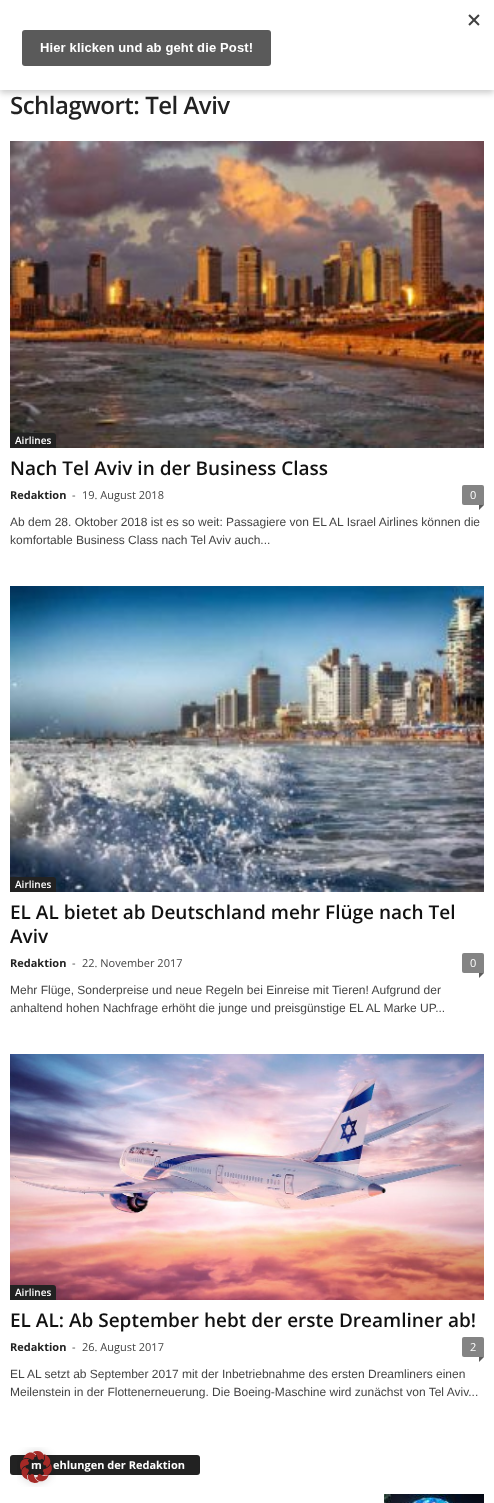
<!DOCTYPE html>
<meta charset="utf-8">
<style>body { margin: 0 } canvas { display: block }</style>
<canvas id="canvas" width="494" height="1503"></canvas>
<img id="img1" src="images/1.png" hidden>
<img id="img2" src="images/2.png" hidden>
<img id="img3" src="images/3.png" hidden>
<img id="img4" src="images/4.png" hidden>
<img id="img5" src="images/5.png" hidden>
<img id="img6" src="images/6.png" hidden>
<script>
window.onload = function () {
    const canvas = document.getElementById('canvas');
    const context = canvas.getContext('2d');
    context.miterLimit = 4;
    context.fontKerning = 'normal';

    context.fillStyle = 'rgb(255, 255, 255)';
    context.fillRect(0, 0, 494, 1503);
    context.fillStyle = 'rgba(0, 0, 0, 0.2)';
    context.filter = 'blur(3px)';
    context.beginPath();
    context.rect(0, 3, 494, 90);
    context.fill();
    context.filter = 'none';
    context.fillStyle = 'rgb(255, 255, 255)';
    context.fillRect(0, 0, 494, 90);
    context.drawImage(document.getElementById('img1'), 22, 14, 458, 52);
    context.drawImage(document.getElementById('img2'), 10, 141, 474, 307);
    context.fillStyle = 'rgb(34, 34, 34)';
    context.beginPath();
    context.roundRect(10, 433, 46, 15, [0, 3, 0, 0]);
    context.fill();
    context.fillStyle = 'rgb(132, 132, 132)';
    context.beginPath();
    context.roundRect(462, 485, 22, 20, [2, 2, 0, 2]);
    context.fill();
    context.fillStyle = 'rgb(91, 91, 91)';
    context.beginPath();
    context.moveTo(479, 505);
    context.lineTo(484, 505);
    context.lineTo(479, 510);
    context.closePath();
    context.fill();
    context.drawImage(document.getElementById('img3'), 10, 586, 474, 306);
    context.fillStyle = 'rgb(34, 34, 34)';
    context.beginPath();
    context.roundRect(10, 877, 46, 15, [0, 3, 0, 0]);
    context.fill();
    context.fillStyle = 'rgb(132, 132, 132)';
    context.beginPath();
    context.roundRect(462, 953, 22, 20, [2, 2, 0, 2]);
    context.fill();
    context.fillStyle = 'rgb(91, 91, 91)';
    context.beginPath();
    context.moveTo(479, 973);
    context.lineTo(484, 973);
    context.lineTo(479, 978);
    context.closePath();
    context.fill();
    context.drawImage(document.getElementById('img4'), 10, 1054, 474, 246);
    context.fillStyle = 'rgb(34, 34, 34)';
    context.beginPath();
    context.roundRect(10, 1285, 46, 15, [0, 3, 0, 0]);
    context.fill();
    context.fillStyle = 'rgb(132, 132, 132)';
    context.beginPath();
    context.roundRect(462, 1337, 22, 20, [2, 2, 0, 2]);
    context.fill();
    context.fillStyle = 'rgb(91, 91, 91)';
    context.beginPath();
    context.moveTo(479, 1357);
    context.lineTo(484, 1357);
    context.lineTo(479, 1362);
    context.closePath();
    context.fill();
    context.fillStyle = 'rgb(34, 34, 34)';
    context.beginPath();
    context.roundRect(10, 1455, 190, 20, 3);
    context.fill();
    context.drawImage(document.getElementById('img5'), 384, 1494, 100, 9);
    context.letterSpacing = '-0.5px';
    context.font = '600 24px Open Sans';
    context.fillText('Schlagwort: Tel Aviv', 10, 114);
    context.letterSpacing = '0px';
    context.font = '600 10px Open Sans';
    context.fillStyle = 'rgb(255, 255, 255)';
    context.fillText('Airlines', 15, 444);
    context.font = '600 19px Open Sans';
    context.fillStyle = 'rgb(17, 17, 17)';
    context.fillText('Nach Tel Aviv in der Business Class', 10, 475);
    context.font = 'bold 11px Open Sans';
    context.fillStyle = 'rgb(34, 34, 34)';
    context.fillText('Redaktion', 10, 499);
    context.font = '11px Open Sans';
    context.fillStyle = 'rgb(68, 68, 68)';
    context.fillText('-', 72, 499);
    context.fillText('19. August 2018', 82, 499);
    context.fillStyle = 'rgb(255, 255, 255)';
    context.fillText('0', 470, 499);
    context.font = '12px Liberation Sans';
    context.fillStyle = 'rgb(68, 68, 68)';
    context.fillText('Ab dem 28. Oktober 2018 ist es so weit: Passagiere von EL AL Israel Airlines können die', 10, 526);
    context.fillText('komfortable Business Class nach Tel Aviv auch...', 10, 544);
    context.font = '600 10px Open Sans';
    context.fillStyle = 'rgb(255, 255, 255)';
    context.fillText('Airlines', 15, 888);
    context.font = '600 19px Open Sans';
    context.fillStyle = 'rgb(17, 17, 17)';
    context.fillText('EL AL bietet ab Deutschland mehr Flüge nach Tel', 10, 919);
    context.fillText('Aviv', 10, 943);
    context.font = 'bold 11px Open Sans';
    context.fillStyle = 'rgb(34, 34, 34)';
    context.fillText('Redaktion', 10, 967);
    context.font = '11px Open Sans';
    context.fillStyle = 'rgb(68, 68, 68)';
    context.fillText('-', 72, 967);
    context.fillText('22. November 2017', 82, 967);
    context.fillStyle = 'rgb(255, 255, 255)';
    context.fillText('0', 470, 967);
    context.font = '12px Liberation Sans';
    context.fillStyle = 'rgb(68, 68, 68)';
    context.fillText('Mehr Flüge, Sonderpreise und neue Regeln bei Einreise mit Tieren! Aufgrund der', 10, 994);
    context.fillText('anhaltend hohen Nachfrage erhöht die junge und preisgünstige EL AL Marke UP...', 10, 1012);
    context.font = '600 10px Open Sans';
    context.fillStyle = 'rgb(255, 255, 255)';
    context.fillText('Airlines', 15, 1296);
    context.font = '600 19px Open Sans';
    context.fillStyle = 'rgb(17, 17, 17)';
    context.fillText('EL AL: Ab September hebt der erste Dreamliner ab!', 10, 1327);
    context.font = 'bold 11px Open Sans';
    context.fillStyle = 'rgb(34, 34, 34)';
    context.fillText('Redaktion', 10, 1351);
    context.font = '11px Open Sans';
    context.fillStyle = 'rgb(68, 68, 68)';
    context.fillText('-', 72, 1351);
    context.fillText('26. August 2017', 82, 1351);
    context.fillStyle = 'rgb(255, 255, 255)';
    context.fillText('2', 470, 1351);
    context.font = '12px Liberation Sans';
    context.fillStyle = 'rgb(68, 68, 68)';
    context.fillText('EL AL setzt ab September 2017 mit der Inbetriebnahme des ersten Dreamliners einen', 10, 1378);
    context.fillText('Meilenstein in der Flottenerneuerung. Die Boeing-Maschine wird zunächst von Tel Aviv...', 10, 1396);
    context.font = 'bold 11px Open Sans';
    context.fillStyle = 'rgb(255, 255, 255)';
    context.fillText('m', 31, 1469);
    context.fillText('ehlungen der Redaktion', 53, 1469);
    context.drawImage(document.getElementById('img6'), 17, 1447, 39, 40);
};
</script>
